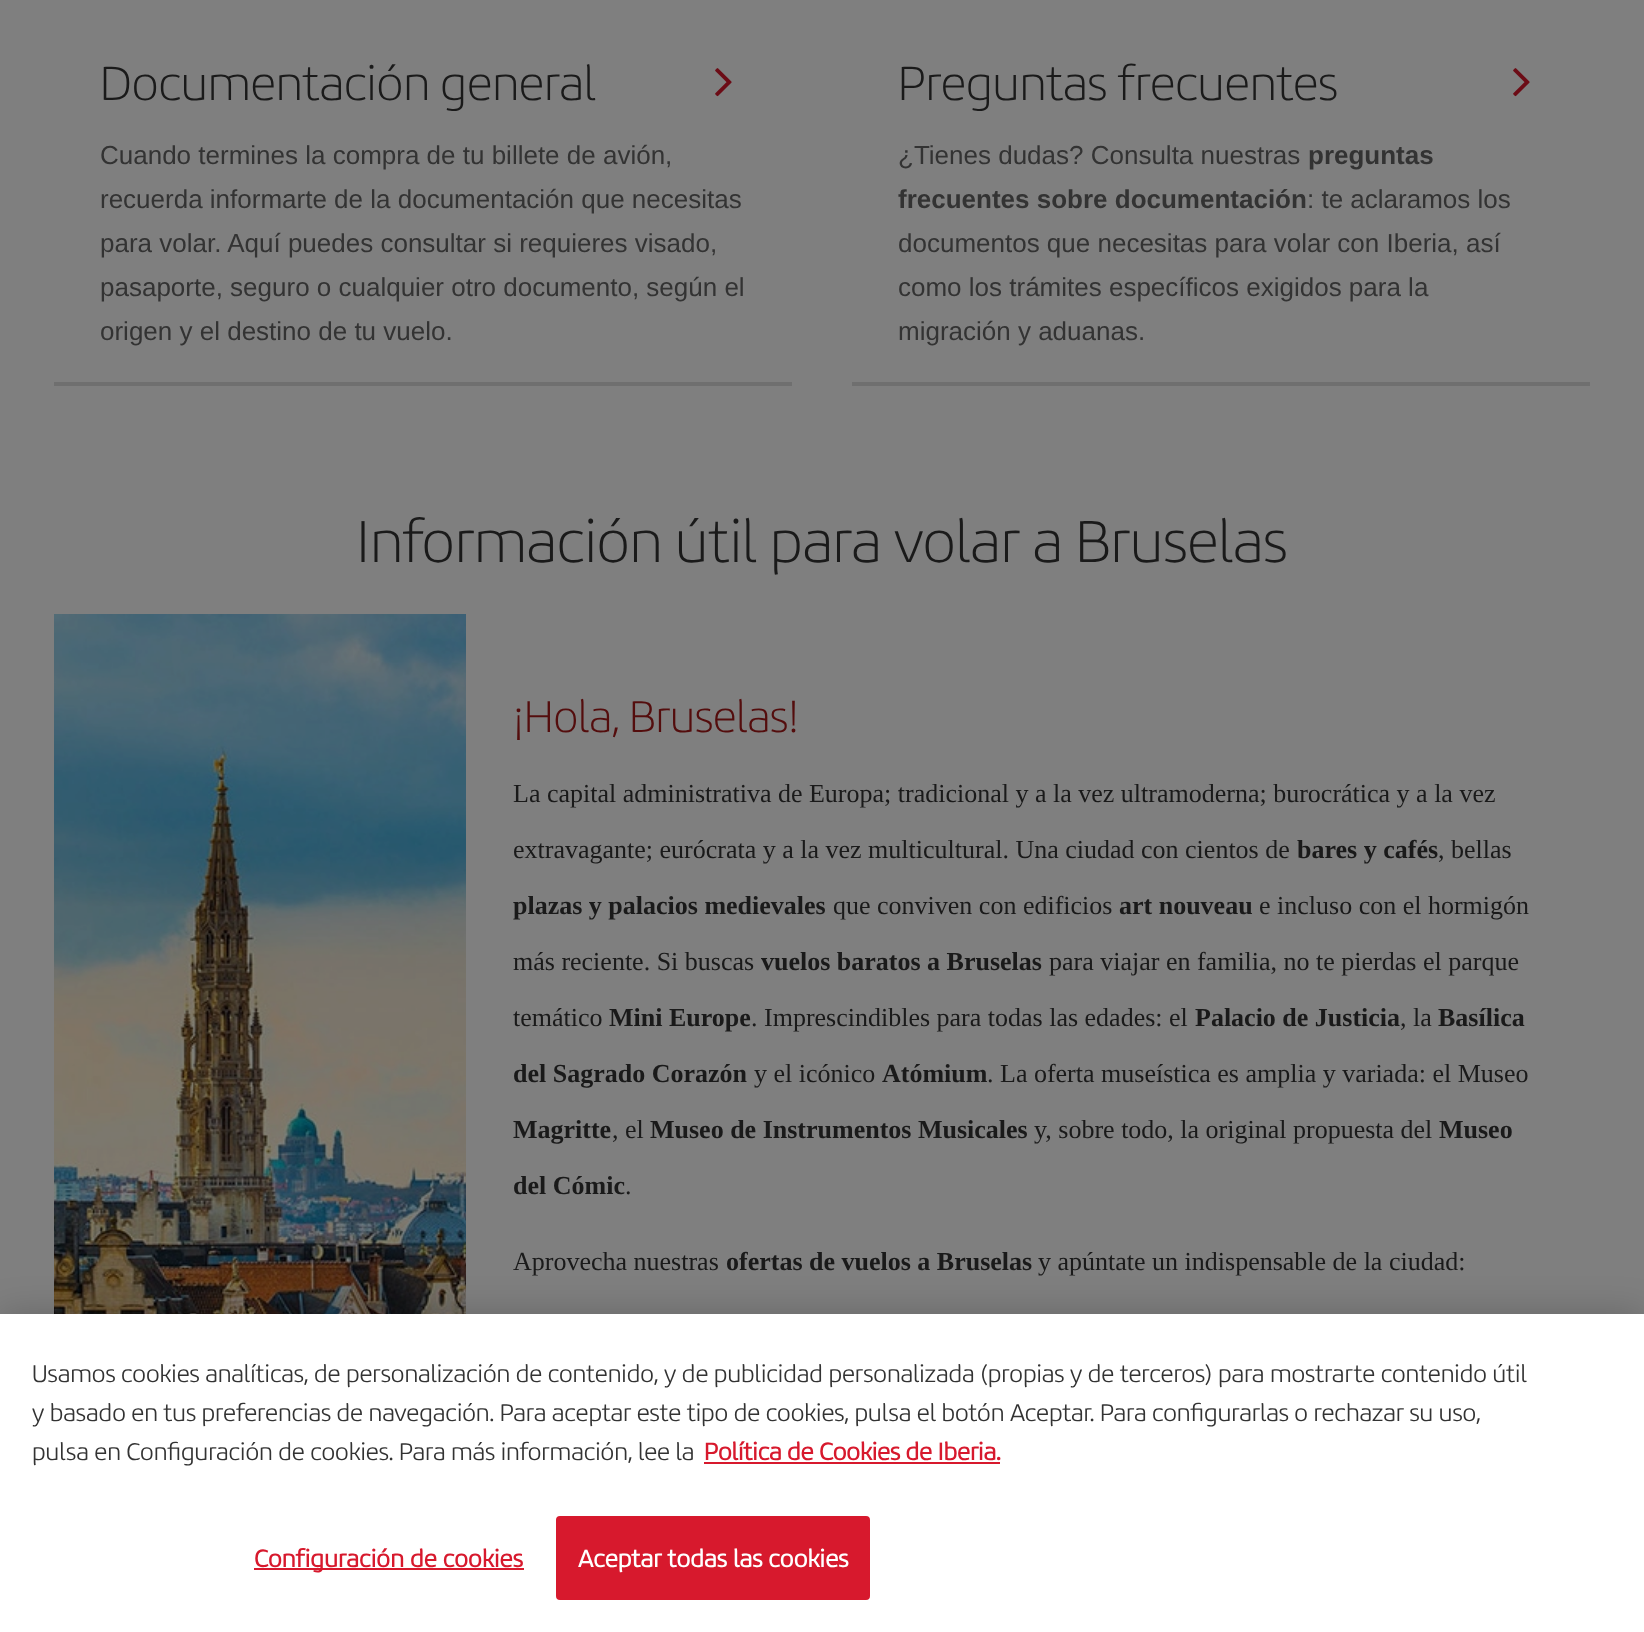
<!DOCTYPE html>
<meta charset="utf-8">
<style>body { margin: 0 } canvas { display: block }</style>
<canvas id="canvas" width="1644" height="1632"></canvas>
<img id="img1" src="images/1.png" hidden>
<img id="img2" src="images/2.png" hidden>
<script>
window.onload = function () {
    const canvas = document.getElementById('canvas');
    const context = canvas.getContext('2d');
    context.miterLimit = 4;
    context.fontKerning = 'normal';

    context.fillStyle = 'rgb(127, 127, 127)';
    context.fillRect(0, 0, 1644, 1632);
    context.fillStyle = 'rgb(111, 111, 111)';
    context.fillRect(54, 382, 738, 4);
    context.drawImage(document.getElementById('img1'), 715, 68, 17, 29);
    context.fillRect(852, 382, 738, 4);
    context.drawImage(document.getElementById('img1'), 1513, 68, 17, 29);
    context.drawImage(document.getElementById('img2'), 54, 614, 412, 700);
    context.fillStyle = 'rgba(0, 0, 0, 0.2)';
    context.filter = 'blur(18px)';
    context.beginPath();
    context.rect(0, 1314, 1644, 318);
    context.fill();
    context.filter = 'none';
    context.fillStyle = 'rgb(255, 255, 255)';
    context.fillRect(0, 1314, 1644, 318);
    context.fillStyle = 'rgb(215, 25, 45)';
    context.fillRect(704, 1462, 296, 2);
    context.fillRect(254, 1568, 270, 2);
    context.beginPath();
    context.roundRect(557, 1517, 312, 82, 3);
    context.fill();
    context.strokeStyle = 'rgb(215, 25, 45)';
    context.lineWidth = 2;
    context.stroke();
    context.font = '300 52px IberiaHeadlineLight';
    context.fillStyle = 'rgb(26, 26, 26)';
    context.fillText('Documentación general', 100, 100);
    context.font = '26px Liberation Sans';
    context.fillStyle = 'rgb(51, 51, 51)';
    context.fillText('Cuando termines la compra de tu billete de avión,', 100, 164);
    context.fillText('recuerda informarte de la documentación que necesitas', 100, 208);
    context.fillText('para volar. Aquí puedes consultar si requieres visado,', 100, 252);
    context.fillText('pasaporte, seguro o cualquier otro documento, según el', 100, 296);
    context.fillText('origen y el destino de tu vuelo.', 100, 340);
    context.font = '300 52px IberiaHeadlineLight';
    context.fillStyle = 'rgb(26, 26, 26)';
    context.fillText('Preguntas frecuentes', 898, 100);
    context.font = '26px Liberation Sans';
    context.fillStyle = 'rgb(51, 51, 51)';
    context.fillText('¿Tienes dudas? Consulta nuestras', 898, 164);
    context.font = 'bold 26px Liberation Sans';
    context.fillText('preguntas', 1308, 164);
    context.fillText('frecuentes sobre documentación', 898, 208);
    context.font = '26px Liberation Sans';
    context.fillText(': te aclaramos los', 1307, 208);
    context.fillText('documentos que necesitas para volar con Iberia, así', 898, 252);
    context.fillText('como los trámites específicos exigidos para la', 898, 296);
    context.fillText('migración y aduanas.', 898, 340);
    context.font = '300 64px IberiaHeadlineLight';
    context.fillStyle = 'rgb(26, 26, 26)';
    context.fillText('Información útil para volar a Bruselas', 356, 562);
    context.font = '300 48px IberiaHeadlineLight';
    context.fillStyle = 'rgb(84, 13, 13)';
    context.fillText('¡Hola, Bruselas!', 513, 732);
    context.font = '26px Liberation Serif';
    context.fillStyle = 'rgb(26, 26, 26)';
    context.fillText('La capital administrativa de Europa; tradicional y a la vez ultramoderna; burocrática y a la vez', 513, 802);
    context.fillText('extravagante; eurócrata y a la vez multicultural. Una ciudad con cientos de', 513, 858);
    context.font = 'bold 26px Liberation Serif';
    context.fillText('bares y cafés', 1297, 858);
    context.font = '26px Liberation Serif';
    context.fillText(', bellas', 1438, 858);
    context.font = 'bold 26px Liberation Serif';
    context.fillText('plazas y palacios medievales', 513, 914);
    context.font = '26px Liberation Serif';
    context.fillText('que conviven con edificios', 833, 914);
    context.font = 'bold 26px Liberation Serif';
    context.fillText('art nouveau', 1119, 914);
    context.font = '26px Liberation Serif';
    context.fillText('e incluso con el hormigón', 1259, 914);
    context.fillText('más reciente. Si buscas', 513, 970);
    context.font = 'bold 26px Liberation Serif';
    context.fillText('vuelos baratos a Bruselas', 761, 970);
    context.font = '26px Liberation Serif';
    context.fillText('para viajar en familia, no te pierdas el parque', 1049, 970);
    context.fillText('temático', 513, 1026);
    context.font = 'bold 26px Liberation Serif';
    context.fillText('Mini Europe', 609, 1026);
    context.font = '26px Liberation Serif';
    context.fillText('. Imprescindibles para todas las edades: el', 751, 1026);
    context.font = 'bold 26px Liberation Serif';
    context.fillText('Palacio de Justicia', 1195, 1026);
    context.font = '26px Liberation Serif';
    context.fillText(', la', 1400, 1026);
    context.font = 'bold 26px Liberation Serif';
    context.fillText('Basílica', 1438, 1026);
    context.fillText('del Sagrado Corazón', 513, 1082);
    context.font = '26px Liberation Serif';
    context.fillText('y el icónico', 754, 1082);
    context.font = 'bold 26px Liberation Serif';
    context.fillText('Atómium', 882, 1082);
    context.font = '26px Liberation Serif';
    context.fillText('. La oferta museística es amplia y variada: el Museo', 987, 1082);
    context.font = 'bold 26px Liberation Serif';
    context.fillText('Magritte', 513, 1138);
    context.font = '26px Liberation Serif';
    context.fillText(', el', 612, 1138);
    context.font = 'bold 26px Liberation Serif';
    context.fillText('Museo de Instrumentos Musicales', 650, 1138);
    context.font = '26px Liberation Serif';
    context.fillText('y, sobre todo, la original propuesta del', 1034, 1138);
    context.font = 'bold 26px Liberation Serif';
    context.fillText('Museo', 1439, 1138);
    context.fillText('del Cómic', 513, 1194);
    context.font = '26px Liberation Serif';
    context.fillText('.', 625, 1194);
    context.fillText('Aprovecha nuestras', 513, 1270);
    context.font = 'bold 26px Liberation Serif';
    context.fillText('ofertas de vuelos a Bruselas', 726, 1270);
    context.font = '26px Liberation Serif';
    context.fillText('y apúntate un indispensable de la ciudad:', 1038, 1270);
    context.font = '26.02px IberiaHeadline';
    context.fillStyle = 'rgb(51, 51, 51)';
    context.fillText('Usamos cookies analíticas, de personalización de contenido, y de publicidad personalizada (propias y de terceros) para mostrarte contenido útil', 32, 1382);
    context.fillText('y basado en tus preferencias de navegación. Para aceptar este tipo de cookies, pulsa el botón Aceptar. Para configurarlas o rechazar su uso,', 32, 1421);
    context.fillText('pulsa en Configuración de cookies. Para más información, lee la', 32, 1460);
    context.font = 'bold 26.02px IberiaHeadline';
    context.fillStyle = 'rgb(215, 25, 45)';
    context.fillText('Política de Cookies de Iberia.', 704, 1460);
    context.letterSpacing = '0.25px';
    context.fillText('Configuración de cookies', 254, 1567);
    context.fillStyle = 'rgb(255, 255, 255)';
    context.fillText('Aceptar todas las cookies', 578, 1567);
};
</script>
